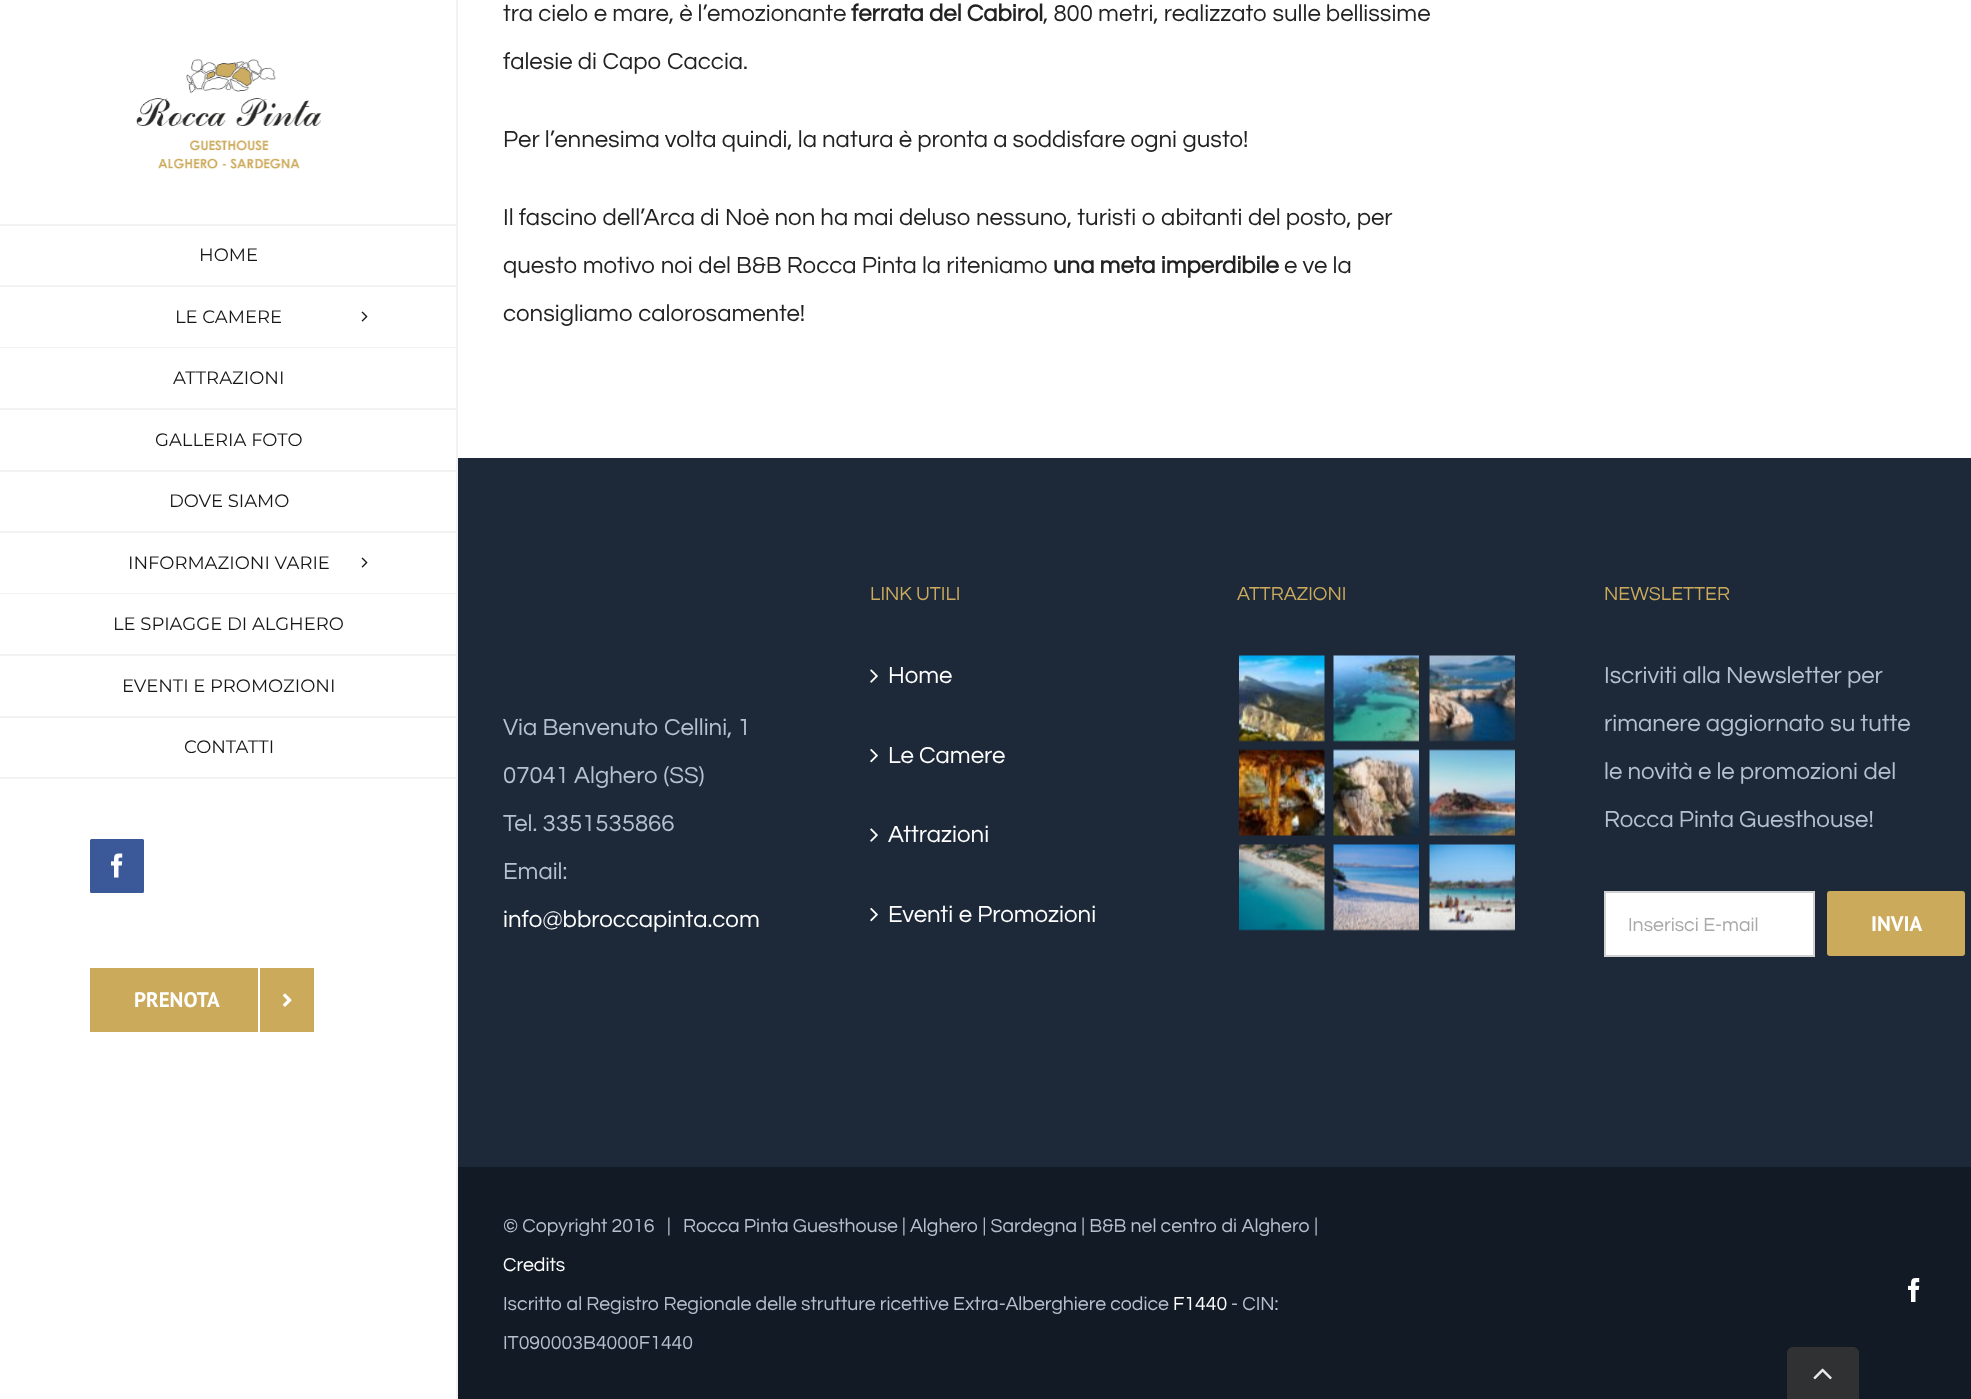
<!DOCTYPE html>
<meta charset="utf-8">
<style>body { margin: 0 } canvas { display: block }</style>
<canvas id="canvas" width="1971" height="1399"></canvas>
<img id="img1" src="images/1.png" hidden>
<img id="img2" src="images/2.png" hidden>
<img id="img3" src="images/3.png" hidden>
<img id="img4" src="images/4.png" hidden>
<img id="img5" src="images/5.png" hidden>
<img id="img6" src="images/6.png" hidden>
<img id="img7" src="images/7.png" hidden>
<img id="img8" src="images/8.png" hidden>
<img id="img9" src="images/9.png" hidden>
<img id="img10" src="images/10.png" hidden>
<img id="img11" src="images/11.png" hidden>
<img id="img12" src="images/12.png" hidden>
<img id="img13" src="images/13.png" hidden>
<img id="img14" src="images/14.png" hidden>
<img id="img15" src="images/15.png" hidden>
<img id="img16" src="images/16.png" hidden>
<img id="img17" src="images/17.png" hidden>
<script>
window.onload = function () {
    const canvas = document.getElementById('canvas');
    const context = canvas.getContext('2d');
    context.miterLimit = 4;
    context.fontKerning = 'normal';

    context.fillStyle = 'rgb(255, 255, 255)';
    context.fillRect(0, 0, 1971, 1399);
    context.drawImage(document.getElementById('img1'), 136, 59, 186, 110);
    context.fillStyle = 'rgb(242, 242, 242)';
    context.fillRect(456, 0, 2, 1399);
    context.fillRect(0, 224, 458, 2);
    context.fillRect(0, 285, 458, 2);
    context.fillRect(0, 347, 458, 1);
    context.drawImage(document.getElementById('img2'), 361, 311, 7, 11);
    context.fillRect(0, 408, 458, 2);
    context.fillRect(0, 470, 458, 2);
    context.fillRect(0, 531, 458, 2);
    context.fillRect(0, 593, 458, 1);
    context.drawImage(document.getElementById('img2'), 361, 557, 7, 11);
    context.fillRect(0, 654, 458, 2);
    context.fillRect(0, 716, 458, 2);
    context.fillRect(0, 777, 458, 2);
    context.fillStyle = 'rgb(59, 89, 152)';
    context.beginPath();
    context.roundRect(91, 840, 52, 52, 0.5);
    context.fill();
    context.strokeStyle = 'rgb(59, 89, 152)';
    context.lineWidth = 2;
    context.stroke();
    context.drawImage(document.getElementById('img3'), 111, 853, 12, 25);
    context.fillStyle = 'rgb(203, 170, 92)';
    context.fillRect(90, 968, 224, 64);
    context.fillStyle = 'rgb(255, 255, 255)';
    context.fillRect(258, 968, 2, 64);
    context.drawImage(document.getElementById('img4'), 283, 993, 9, 14);
    context.fillStyle = 'rgb(29, 41, 57)';
    context.fillRect(458, 458, 1513, 709);
    context.drawImage(document.getElementById('img5'), 870, 669, 8, 14);
    context.drawImage(document.getElementById('img6'), 870, 748, 8, 15);
    context.drawImage(document.getElementById('img5'), 870, 828, 8, 14);
    context.drawImage(document.getElementById('img6'), 870, 907, 8, 15);
    context.drawImage(document.getElementById('img7'), 1239, 655, 86, 87);
    context.drawImage(document.getElementById('img8'), 1333, 655, 86, 87);
    context.drawImage(document.getElementById('img9'), 1429, 655, 86, 87);
    context.drawImage(document.getElementById('img10'), 1239, 749, 86, 87);
    context.drawImage(document.getElementById('img11'), 1333, 749, 86, 87);
    context.drawImage(document.getElementById('img12'), 1429, 749, 86, 87);
    context.drawImage(document.getElementById('img13'), 1239, 844, 86, 87);
    context.drawImage(document.getElementById('img14'), 1333, 844, 86, 87);
    context.drawImage(document.getElementById('img15'), 1429, 844, 86, 87);
    context.fillStyle = 'rgb(255, 255, 255)';
    context.beginPath();
    context.rect(1605, 892, 209, 64);
    context.fill();
    context.strokeStyle = 'rgb(210, 210, 210)';
    context.stroke();
    context.fillStyle = 'rgb(203, 170, 92)';
    context.beginPath();
    context.roundRect(1827, 891, 138, 65, 3);
    context.fill();
    context.fillStyle = 'rgb(18, 26, 38)';
    context.fillRect(458, 1167, 1513, 232);
    context.drawImage(document.getElementById('img16'), 1908, 1278, 12, 24);
    context.fillStyle = 'rgb(48, 49, 50)';
    context.beginPath();
    context.moveTo(1793, 1347);
    context.lineTo(1853, 1347);
    context.bezierCurveTo(1856.5, 1347, 1859, 1349.5, 1859, 1353);
    context.lineTo(1859, 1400);
    context.lineTo(1787, 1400);
    context.lineTo(1787, 1353);
    context.bezierCurveTo(1787, 1349.5, 1789.5, 1347, 1793, 1347);
    context.closePath();
    context.fill();
    context.drawImage(document.getElementById('img17'), 1813, 1368, 19, 12);
    context.font = '24px Questrial';
    context.fillStyle = 'rgb(34, 34, 34)';
    context.fillText('tra cielo e mare, è l’emozionante', 503, 21);
    context.font = 'bold 24px Questrial';
    context.fillText('ferrata del Cabirol', 851, 21);
    context.font = '24px Questrial';
    context.fillText(', 800 metri, realizzato sulle bellissime', 1043, 21);
    context.fillText('falesie di Capo Caccia.', 503, 69);
    context.fillText('Per l’ennesima volta quindi, la natura è pronta a soddisfare ogni gusto!', 503, 147);
    context.fillText('Il fascino dell’Arca di Noè non ha mai deluso nessuno, turisti o abitanti del posto, per', 503, 225);
    context.fillText('questo motivo noi del B&B Rocca Pinta la riteniamo', 503, 273);
    context.font = 'bold 24px Questrial';
    context.fillText('una meta imperdibile', 1053, 273);
    context.font = '24px Questrial';
    context.fillText('e ve la', 1284, 273);
    context.fillText('consigliamo calorosamente!', 503, 321);
    context.font = '100 18px Montserrat';
    context.fillStyle = 'rgb(23, 23, 23)';
    context.fillText('HOME', 199, 261);
    context.fillText('LE CAMERE', 175, 323);
    context.fillText('ATTRAZIONI', 173, 384);
    context.fillText('GALLERIA FOTO', 155, 446);
    context.fillText('DOVE SIAMO', 169, 507);
    context.fillText('INFORMAZIONI VARIE', 128, 569);
    context.fillText('LE SPIAGGE DI ALGHERO', 113, 630);
    context.fillText('EVENTI E PROMOZIONI', 122, 692);
    context.fillText('CONTATTI', 184, 753);
    context.font = 'bold 21px PT Sans';
    context.fillStyle = 'rgb(255, 255, 255)';
    context.fillText('PRENOTA', 134, 1007);
    context.font = '24px Questrial';
    context.fillStyle = 'rgb(182, 192, 206)';
    context.fillText('Via Benvenuto Cellini, 1', 503, 735);
    context.fillText('07041 Alghero (SS)', 503, 783);
    context.fillText('Tel. 3351535866', 503, 831);
    context.fillText('Email:', 503, 879);
    context.fillStyle = 'rgb(255, 255, 255)';
    context.fillText('info@bbroccapinta.com', 503, 927);
    context.font = '19.5px Questrial';
    context.fillStyle = 'rgb(203, 170, 92)';
    context.fillText('LINK UTILI', 870, 600);
    context.font = '24px Questrial';
    context.fillStyle = 'rgb(255, 255, 255)';
    context.fillText('Home', 888, 683);
    context.fillText('Le Camere', 888, 763);
    context.fillText('Attrazioni', 888, 842);
    context.fillText('Eventi e Promozioni', 888, 922);
    context.font = '19.5px Questrial';
    context.fillStyle = 'rgb(203, 170, 92)';
    context.fillText('ATTRAZIONI', 1237, 600);
    context.fillText('NEWSLETTER', 1604, 600);
    context.font = '24px Questrial';
    context.fillStyle = 'rgb(182, 192, 206)';
    context.fillText('Iscriviti alla Newsletter per', 1604, 683);
    context.fillText('rimanere aggiornato su tutte', 1604, 731);
    context.fillText('le novità e le promozioni del', 1604, 779);
    context.fillText('Rocca Pinta Guesthouse!', 1604, 827);
    context.font = '19.5px Questrial';
    context.fillStyle = 'rgb(170, 169, 169)';
    context.fillText('Inserisci E-mail', 1628, 931);
    context.font = 'bold 21px PT Sans';
    context.fillStyle = 'rgb(255, 255, 255)';
    context.fillText('INVIA', 1871, 931);
    context.font = '19.5px Questrial';
    context.fillStyle = 'rgb(182, 192, 206)';
    context.fillText('© Copyright 2016   |   Rocca Pinta Guesthouse | Alghero | Sardegna | B&B nel centro di Alghero |', 503, 1232);
    context.fillStyle = 'rgb(255, 255, 255)';
    context.fillText('Credits', 503, 1271);
    context.fillStyle = 'rgb(182, 192, 206)';
    context.fillText('Iscritto al Registro Regionale delle strutture ricettive Extra-Alberghiere codice', 503, 1310);
    context.fillStyle = 'rgb(255, 255, 255)';
    context.fillText('F1440', 1173, 1310);
    context.fillStyle = 'rgb(182, 192, 206)';
    context.fillText('- CIN:', 1231, 1310);
    context.fillText('IT090003B4000F1440', 503, 1349);
};
</script>
